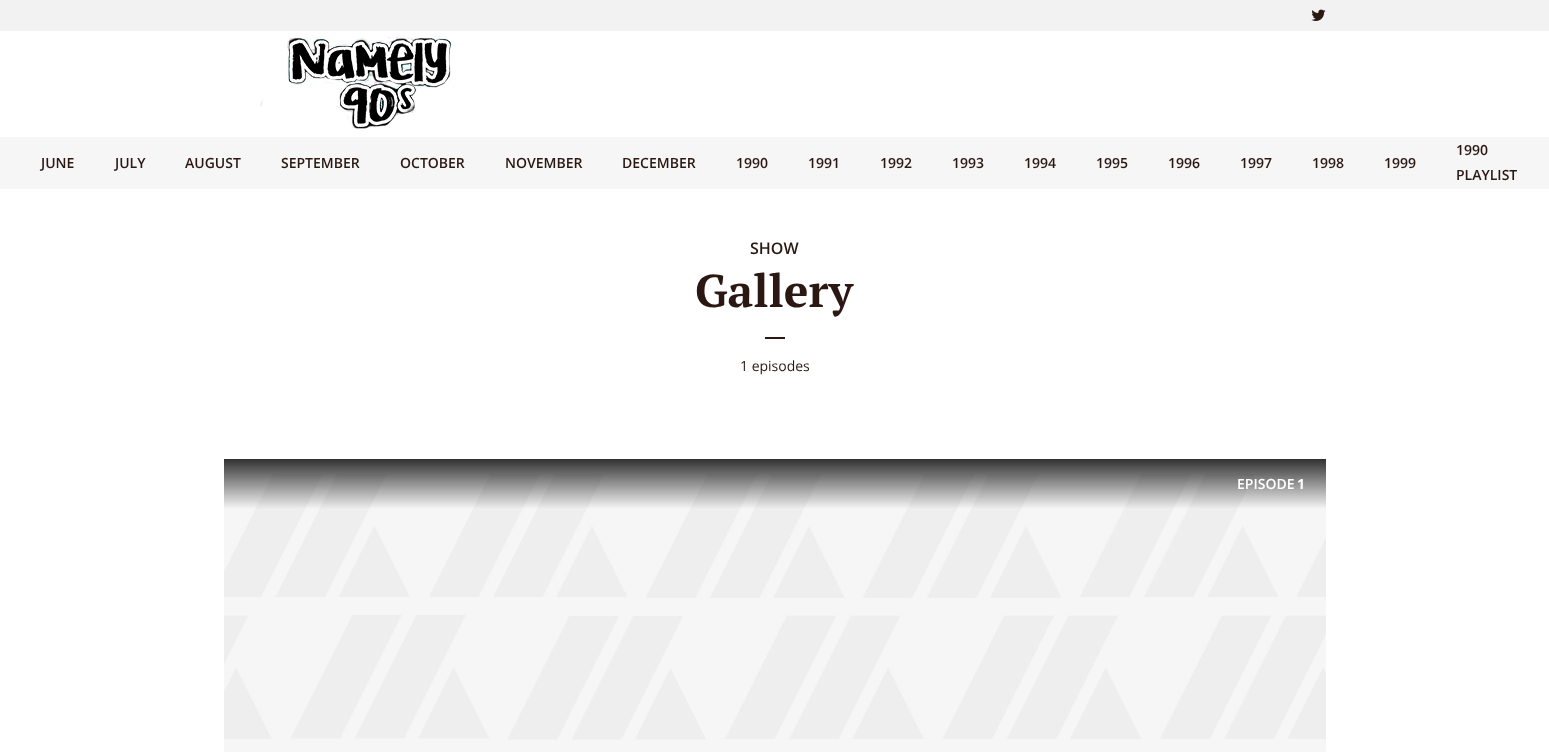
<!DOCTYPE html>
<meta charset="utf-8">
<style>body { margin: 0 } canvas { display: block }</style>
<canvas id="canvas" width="1549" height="752"></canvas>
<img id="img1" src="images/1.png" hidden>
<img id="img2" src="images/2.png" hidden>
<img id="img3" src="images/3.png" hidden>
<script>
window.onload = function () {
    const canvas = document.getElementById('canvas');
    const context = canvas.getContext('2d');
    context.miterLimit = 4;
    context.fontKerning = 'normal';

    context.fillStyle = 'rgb(255, 255, 255)';
    context.fillRect(0, 0, 1549, 752);
    context.fillStyle = 'rgb(242, 242, 242)';
    context.fillRect(0, 0, 1549, 31);
    context.drawImage(document.getElementById('img1'), 1311, 9, 15, 12);
    context.drawImage(document.getElementById('img2'), 260, 36, 194, 93);
    context.fillStyle = 'rgb(246, 246, 246)';
    context.fillRect(0, 137, 1549, 52);
    context.fillStyle = 'rgb(43, 24, 19)';
    context.fillRect(765, 337, 20, 2);
    context.drawImage(document.getElementById('img3'), 224, 459, 1102, 293);
    context.font = '600 14px Open Sans';
    context.fillText('JUNE', 41, 168);
    context.fillText('JULY', 115, 168);
    context.fillText('AUGUST', 185, 168);
    context.fillText('SEPTEMBER', 281, 168);
    context.fillText('OCTOBER', 400, 168);
    context.fillText('NOVEMBER', 505, 168);
    context.fillText('DECEMBER', 622, 168);
    context.fillText('1990', 736, 168);
    context.fillText('1991', 808, 168);
    context.fillText('1992', 880, 168);
    context.fillText('1993', 952, 168);
    context.fillText('1994', 1024, 168);
    context.fillText('1995', 1096, 168);
    context.fillText('1996', 1168, 168);
    context.fillText('1997', 1240, 168);
    context.fillText('1998', 1312, 168);
    context.fillText('1999', 1384, 168);
    context.fillText('1990', 1456, 155);
    context.fillText('PLAYLIST', 1456, 180);
    context.font = '600 16px Open Sans';
    context.fillText('SHOW', 750, 254);
    context.font = 'bold 46px PT Serif';
    context.fillText('Gallery', 695, 307);
    context.font = '14px Open Sans';
    context.fillText('1 episodes', 740, 371);
    context.font = '600 14px Open Sans';
    context.fillStyle = 'rgb(255, 255, 255)';
    context.fillText('EPISODE', 1237, 489);
    context.font = 'bold 14px Open Sans';
    context.fillText('1', 1297, 489);
};
</script>
